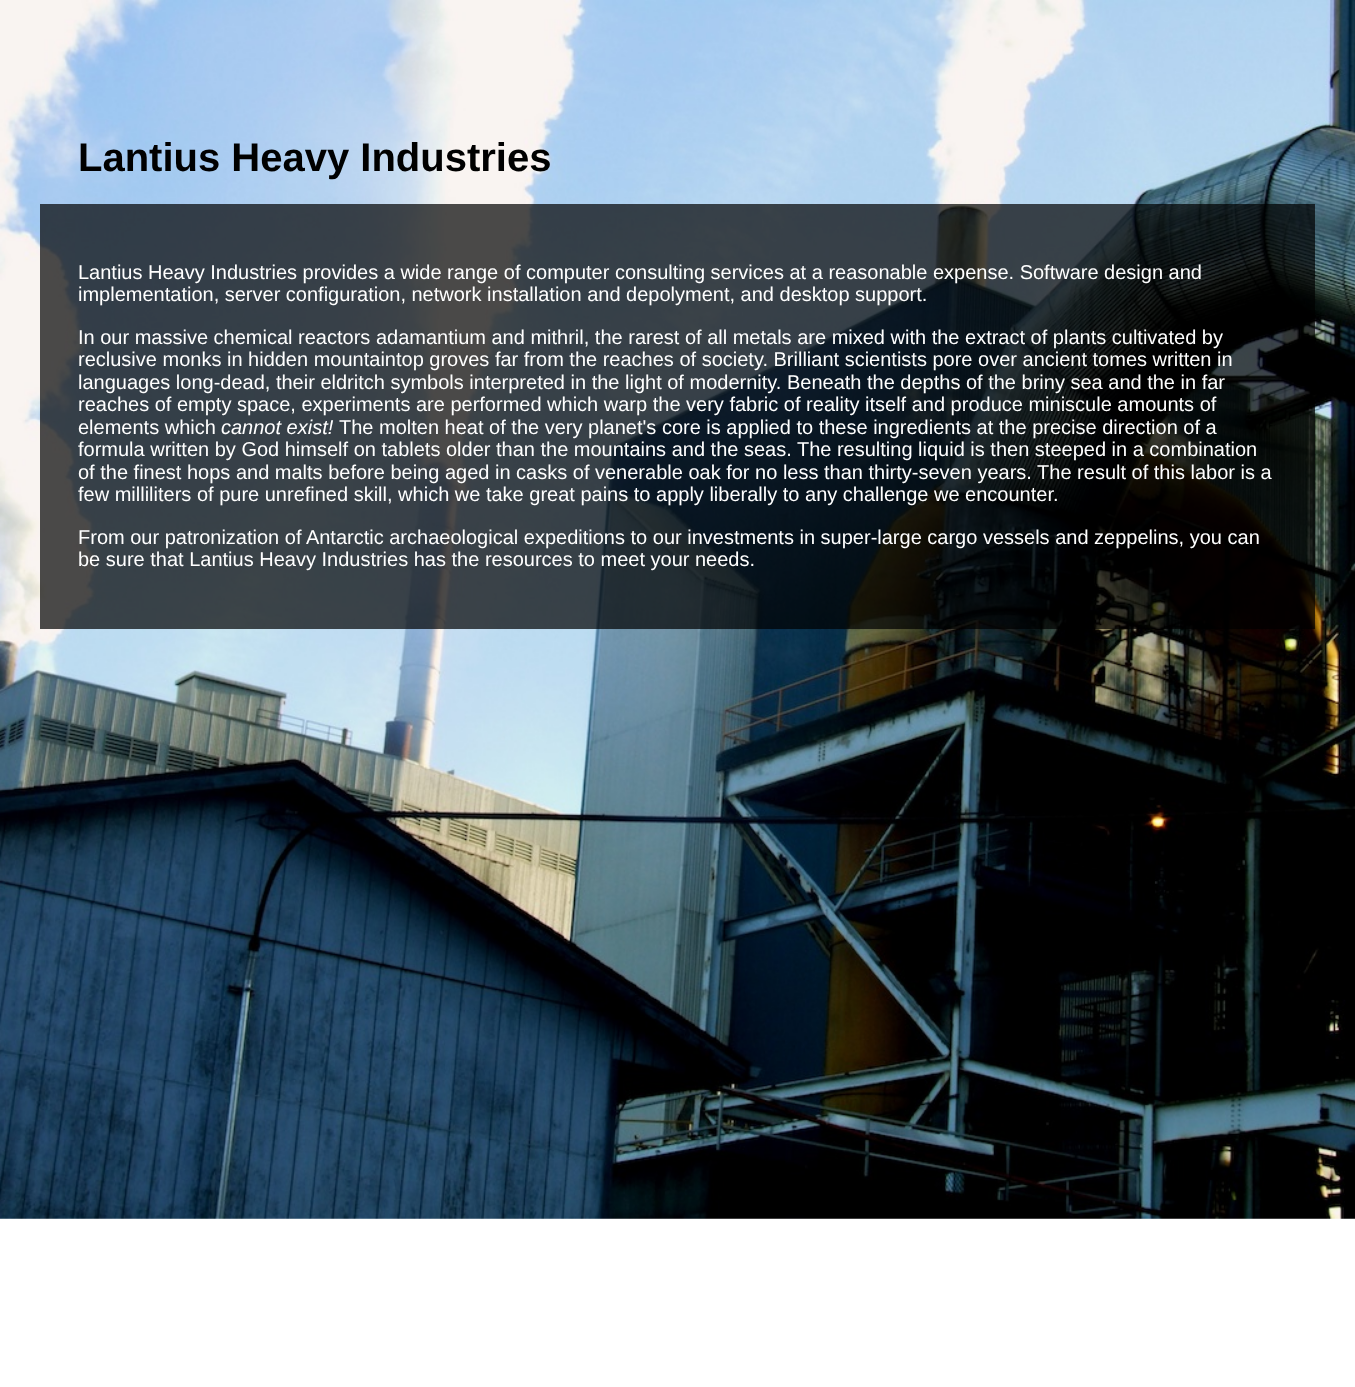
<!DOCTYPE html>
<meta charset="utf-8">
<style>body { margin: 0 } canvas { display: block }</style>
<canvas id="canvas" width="1355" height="1387"></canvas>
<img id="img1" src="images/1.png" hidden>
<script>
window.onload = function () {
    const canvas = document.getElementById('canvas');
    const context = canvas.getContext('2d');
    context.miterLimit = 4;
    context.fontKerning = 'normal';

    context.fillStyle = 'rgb(255, 255, 255)';
    context.fillRect(0, 0, 1355, 1387);
    context.drawImage(document.getElementById('img1'), 0, 0, 1355, 1219);
    context.fillStyle = 'rgba(0, 0, 0, 0.7)';
    context.fillRect(40, 204, 1275, 425);
    context.font = 'bold 40px Liberation Sans';
    context.fillStyle = 'rgb(0, 0, 0)';
    context.fillText('Lantius Heavy Industries', 78, 171);
    context.font = '20px Liberation Sans';
    context.fillStyle = 'rgb(255, 255, 255)';
    context.fillText('Lantius Heavy Industries provides a wide range of computer consulting services at a reasonable expense. Software design and', 78, 279);
    context.fillText('implementation, server configuration, network installation and depolyment, and desktop support.', 78, 301);
    context.fillText('In our massive chemical reactors adamantium and mithril, the rarest of all metals are mixed with the extract of plants cultivated by', 78, 344);
    context.fillText('reclusive monks in hidden mountaintop groves far from the reaches of society. Brilliant scientists pore over ancient tomes written in', 78, 366);
    context.fillText('languages long-dead, their eldritch symbols interpreted in the light of modernity. Beneath the depths of the briny sea and the in far', 78, 389);
    context.fillText('reaches of empty space, experiments are performed which warp the very fabric of reality itself and produce miniscule amounts of', 78, 411);
    context.fillText('elements which', 78, 434);
    context.font = 'italic 20px Liberation Sans';
    context.fillText('cannot exist!', 221, 434);
    context.font = '20px Liberation Sans';
    context.fillText('The molten heat of the very planet\'s core is applied to these ingredients at the precise direction of a', 339, 434);
    context.fillText('formula written by God himself on tablets older than the mountains and the seas. The resulting liquid is then steeped in a combination', 78, 456);
    context.fillText('of the finest hops and malts before being aged in casks of venerable oak for no less than thirty-seven years. The result of this labor is a', 78, 479);
    context.fillText('few milliliters of pure unrefined skill, which we take great pains to apply liberally to any challenge we encounter.', 78, 501);
    context.fillText('From our patronization of Antarctic archaeological expeditions to our investments in super-large cargo vessels and zeppelins, you can', 78, 544);
    context.fillText('be sure that Lantius Heavy Industries has the resources to meet your needs.', 78, 566);
};
</script>
